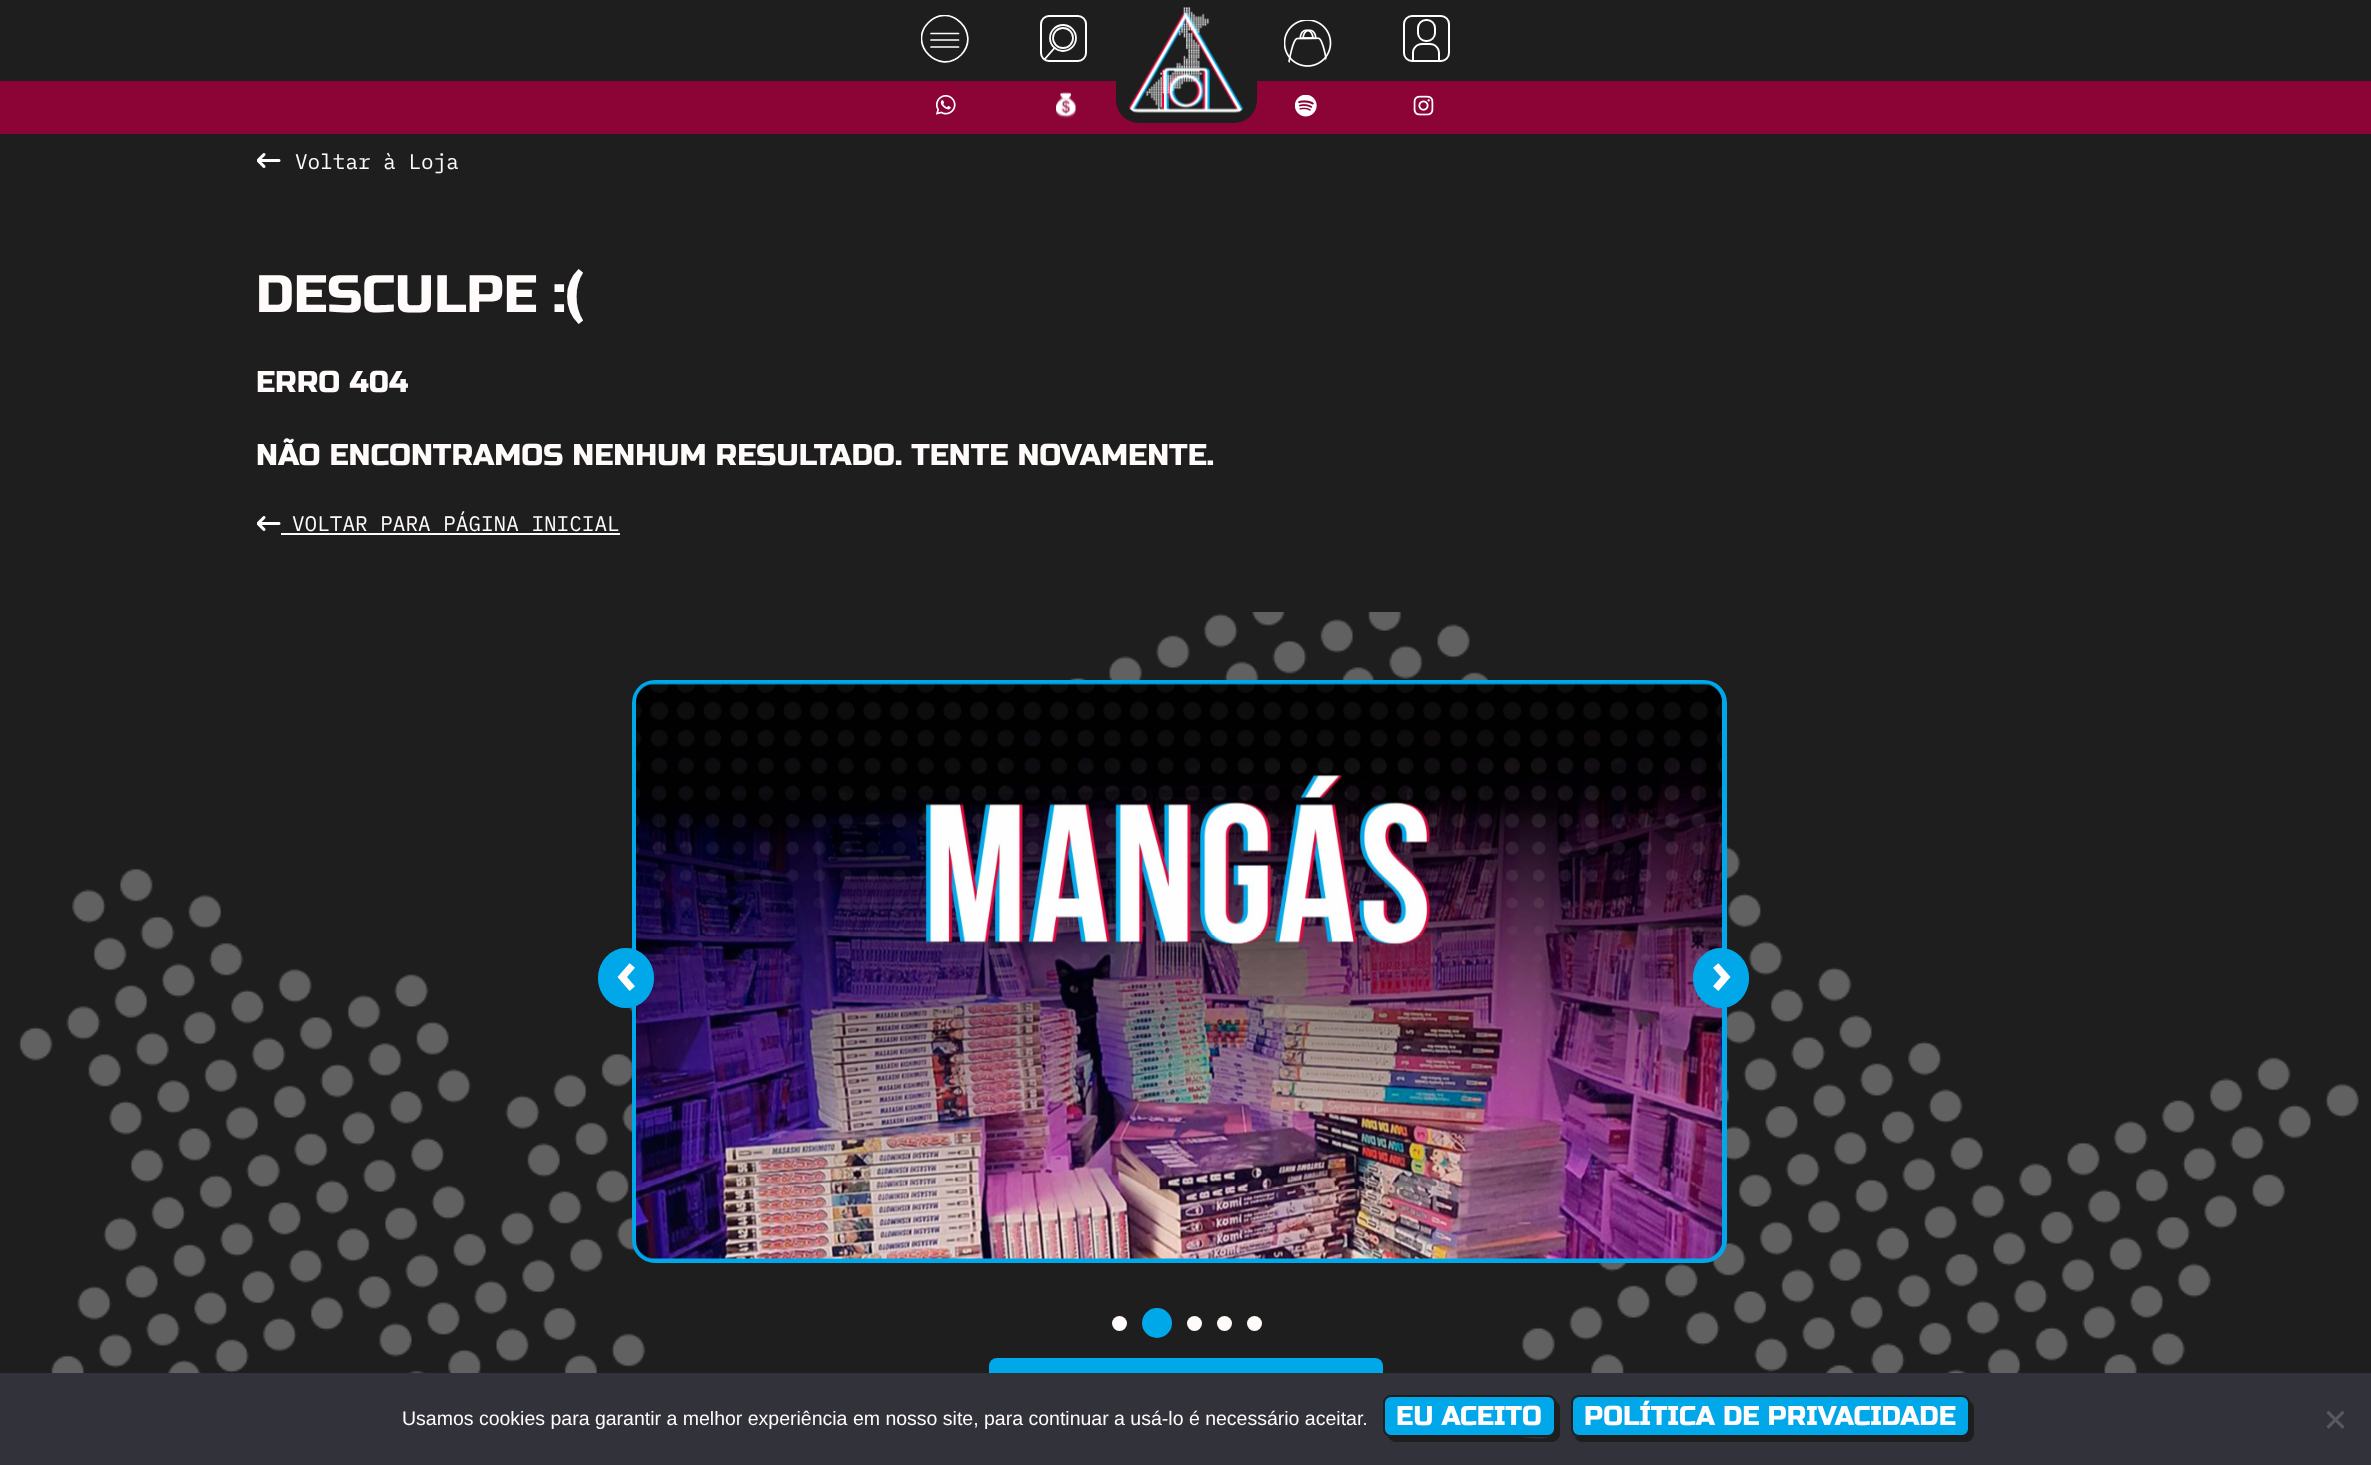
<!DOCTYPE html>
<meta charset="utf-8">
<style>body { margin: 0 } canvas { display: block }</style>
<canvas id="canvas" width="2371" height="1465"></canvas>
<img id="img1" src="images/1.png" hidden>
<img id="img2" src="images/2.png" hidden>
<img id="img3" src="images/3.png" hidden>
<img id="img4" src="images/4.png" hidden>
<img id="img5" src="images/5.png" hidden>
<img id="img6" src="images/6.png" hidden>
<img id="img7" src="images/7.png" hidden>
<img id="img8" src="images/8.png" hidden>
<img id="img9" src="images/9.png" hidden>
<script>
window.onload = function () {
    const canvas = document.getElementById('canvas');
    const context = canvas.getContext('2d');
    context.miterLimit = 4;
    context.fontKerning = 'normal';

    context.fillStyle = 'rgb(30, 30, 30)';
    context.fillRect(0, 0, 2371, 1465);
    context.save();
    context.beginPath();
    context.rect(921, 15, 48, 48);
    context.clip();
    context.beginPath();
    context.moveTo(928.5, 22.5);
    context.bezierCurveTo(950, 1, 982, 33.5, 961, 55);
    context.bezierCurveTo(939.5, 76, 907, 44, 928.5, 22.5);
    context.closePath();
    context.strokeStyle = 'rgb(255, 255, 255)';
    context.lineWidth = 1.7;
    context.lineCap = 'round';
    context.stroke();
    context.restore();
    context.beginPath();
    context.moveTo(931, 33.5);
    context.lineTo(958.5, 33.5);
    context.moveTo(931, 40);
    context.lineTo(958.5, 40);
    context.moveTo(931, 47);
    context.lineTo(958.5, 47);
    context.strokeStyle = 'rgb(255, 255, 255)';
    context.lineWidth = 1.7;
    context.lineCap = 'round';
    context.stroke();
    context.beginPath();
    context.arc(1063, 38, 13, 0, 2 * Math.PI);
    context.lineWidth = 1.8;
    context.stroke();
    context.beginPath();
    context.arc(1063, 38, 10, 0, 2 * Math.PI);
    context.stroke();
    context.save();
    context.beginPath();
    context.roundRect(1040, 16, 46, 45, 8);
    context.clip();
    context.beginPath();
    context.moveTo(1054.5, 48);
    context.lineTo(1043.5, 60.5);
    context.stroke();
    context.restore();
    context.beginPath();
    context.roundRect(1041, 16, 45, 45, 8);
    context.lineWidth = 2;
    context.stroke();
    context.fillStyle = 'rgb(140, 3, 54)';
    context.fillRect(0, 81, 2371, 53);
    context.fillStyle = 'rgb(30, 30, 30)';
    context.beginPath();
    context.roundRect(1116, 8, 141, 115, 23);
    context.fill();
    context.drawImage(document.getElementById('img1'), 1128, 7, 115, 106);
    context.drawImage(document.getElementById('img2'), 1284, 20, 48, 47);
    context.beginPath();
    context.roundRect(1418, 20, 17, 21, 8);
    context.stroke();
    context.fillStyle = 'rgb(255, 255, 255)';
    context.beginPath();
    context.moveTo(1422, 43);
    context.bezierCurveTo(1416.5, 43, 1412, 47.5, 1412, 53);
    context.lineTo(1412, 61);
    context.lineTo(1414, 61);
    context.lineTo(1414, 53);
    context.bezierCurveTo(1414, 48.5, 1417.5, 45, 1422, 45);
    context.lineTo(1430, 45);
    context.bezierCurveTo(1434.5, 45, 1438, 48.5, 1438, 53);
    context.lineTo(1438, 61);
    context.lineTo(1440, 61);
    context.lineTo(1440, 53);
    context.bezierCurveTo(1440, 47.5, 1435.5, 43, 1430, 43);
    context.closePath();
    context.fill();
    context.beginPath();
    context.roundRect(1404, 16, 45, 45, 8);
    context.stroke();
    context.drawImage(document.getElementById('img3'), 935, 95, 21, 20);
    context.drawImage(document.getElementById('img4'), 1056, 92, 20, 26);
    context.drawImage(document.getElementById('img5'), 1295, 95, 22, 22);
    context.drawImage(document.getElementById('img6'), 1413, 95, 21, 21);
    context.drawImage(document.getElementById('img7'), 257, 153, 24, 15);
    context.drawImage(document.getElementById('img7'), 257, 516, 24, 15);
    context.fillStyle = 'rgb(255, 251, 251)';
    context.fillRect(281, 533, 339, 2);
    context.drawImage(document.getElementById('img8'), 18, 612, 2341, 761);
    context.beginPath();
    context.roundRect(634.5, 682.5, 1090, 578, 20.5);
    context.strokeStyle = 'rgb(0, 168, 233)';
    context.lineWidth = 5;
    context.stroke();
    context.drawImage(document.getElementById('img9'), 636, 683, 1086, 576);
    context.fillStyle = 'rgb(0, 168, 233)';
    context.beginPath();
    context.ellipse(626, 978, 28, 30, 0, 0, 2 * Math.PI);
    context.fill();
    context.beginPath();
    context.moveTo(626, 949);
    context.bezierCurveTo(641, 949, 653, 962, 653, 978);
    context.bezierCurveTo(653, 994, 641, 1007, 626, 1007);
    context.bezierCurveTo(611.5, 1007, 599, 994, 599, 978);
    context.bezierCurveTo(599, 962, 611.5, 949, 626, 949);
    context.closePath();
    context.lineWidth = 1.5;
    context.lineCap = 'butt';
    context.stroke();
    context.beginPath();
    context.ellipse(1721, 978, 28, 30, 0, 0, 2 * Math.PI);
    context.fill();
    context.beginPath();
    context.moveTo(1721, 949);
    context.bezierCurveTo(1736, 949, 1748, 962, 1748, 978);
    context.bezierCurveTo(1748, 994, 1736, 1007, 1721, 1007);
    context.bezierCurveTo(1706.5, 1007, 1694, 994, 1694, 978);
    context.bezierCurveTo(1694, 962, 1706.5, 949, 1721, 949);
    context.closePath();
    context.stroke();
    context.fillStyle = 'rgb(255, 251, 251)';
    context.beginPath();
    context.arc(1119.5, 1323.5, 7.5, 0, 2 * Math.PI);
    context.fill();
    context.fillStyle = 'rgb(0, 168, 233)';
    context.beginPath();
    context.arc(1157, 1323, 15, 0, 2 * Math.PI);
    context.fill();
    context.fillStyle = 'rgb(255, 251, 251)';
    context.beginPath();
    context.arc(1194.5, 1323.5, 7.5, 0, 2 * Math.PI);
    context.fill();
    context.beginPath();
    context.arc(1224.5, 1323.5, 7.5, 0, 2 * Math.PI);
    context.fill();
    context.beginPath();
    context.arc(1254.5, 1323.5, 7.5, 0, 2 * Math.PI);
    context.fill();
    context.fillStyle = 'rgb(0, 168, 233)';
    context.beginPath();
    context.roundRect(989, 1358, 394, 48, 8);
    context.fill();
    context.fillStyle = 'rgb(50, 50, 58)';
    context.fillRect(0, 1373, 2371, 92);
    context.fillStyle = 'rgb(30, 30, 30)';
    context.beginPath();
    context.moveTo(1388, 1437);
    context.bezierCurveTo(1390, 1440, 1393, 1442, 1396, 1442);
    context.lineTo(1552, 1442);
    context.bezierCurveTo(1556, 1442, 1560, 1438, 1560, 1434);
    context.lineTo(1560, 1408);
    context.bezierCurveTo(1560, 1405, 1558, 1402, 1555, 1401);
    context.lineTo(1555, 1431);
    context.bezierCurveTo(1553, 1443, 1522, 1437, 1522, 1437);
    context.closePath();
    context.fill();
    context.fillStyle = 'rgb(0, 168, 233)';
    context.beginPath();
    context.roundRect(1384, 1396, 171, 40, 7);
    context.fill();
    context.strokeStyle = 'rgb(30, 30, 30)';
    context.lineWidth = 2;
    context.stroke();
    context.fillStyle = 'rgb(30, 30, 30)';
    context.beginPath();
    context.moveTo(1575, 1437);
    context.bezierCurveTo(1576, 1440, 1579, 1442, 1583, 1442);
    context.lineTo(1966, 1442);
    context.bezierCurveTo(1970, 1442, 1974, 1438, 1974, 1434);
    context.lineTo(1974, 1408);
    context.bezierCurveTo(1974, 1405, 1972, 1402, 1969, 1401);
    context.lineTo(1970, 1420);
    context.bezierCurveTo(1970, 1426, 1971, 1437, 1962, 1437);
    context.lineTo(1578, 1437);
    context.closePath();
    context.fill();
    context.fillStyle = 'rgb(0, 168, 233)';
    context.beginPath();
    context.roundRect(1572, 1396, 397, 40, 7);
    context.fill();
    context.stroke();
    context.fillStyle = 'rgb(89, 89, 93)';
    context.beginPath();
    context.moveTo(2342.5, 1410.5);
    context.lineTo(2344.5, 1413);
    context.lineTo(2328.5, 1429);
    context.lineTo(2326.5, 1426.5);
    context.closePath();
    context.fill();
    context.beginPath();
    context.moveTo(2326.5, 1413);
    context.lineTo(2328.5, 1410.5);
    context.lineTo(2344.5, 1426.5);
    context.lineTo(2342.5, 1429);
    context.closePath();
    context.fill();
    context.font = '21px IBM Plex Mono';
    context.fillStyle = 'rgb(255, 251, 251)';
    context.fillText('Voltar à Loja', 295, 169);
    context.font = '52.5px Russo One';
    context.fillText('DESCULPE :(', 256, 312);
    context.font = '30px Russo One';
    context.fillText('ERRO 404', 256, 392);
    context.fillText('NÃO ENCONTRAMOS NENHUM RESULTADO. TENTE NOVAMENTE.', 256, 465);
    context.font = '21px IBM Plex Mono';
    context.fillText('VOLTAR PARA PÁGINA INICIAL', 292, 531);
    context.font = '52.5px Russo One';
    context.fillText('‹', 617, 991);
    context.fillText('›', 1712, 991);
    context.font = '19.5px Liberation Sans';
    context.fillText('Usamos cookies para garantir a melhor experiência em nosso site, para continuar a usá-lo é necessário aceitar.', 402, 1425);
    context.font = '27px Russo One';
    context.fillText('EU ACEITO', 1396, 1425);
    context.fillText('POLÍTICA DE PRIVACIDADE', 1584, 1425);
};
</script>
